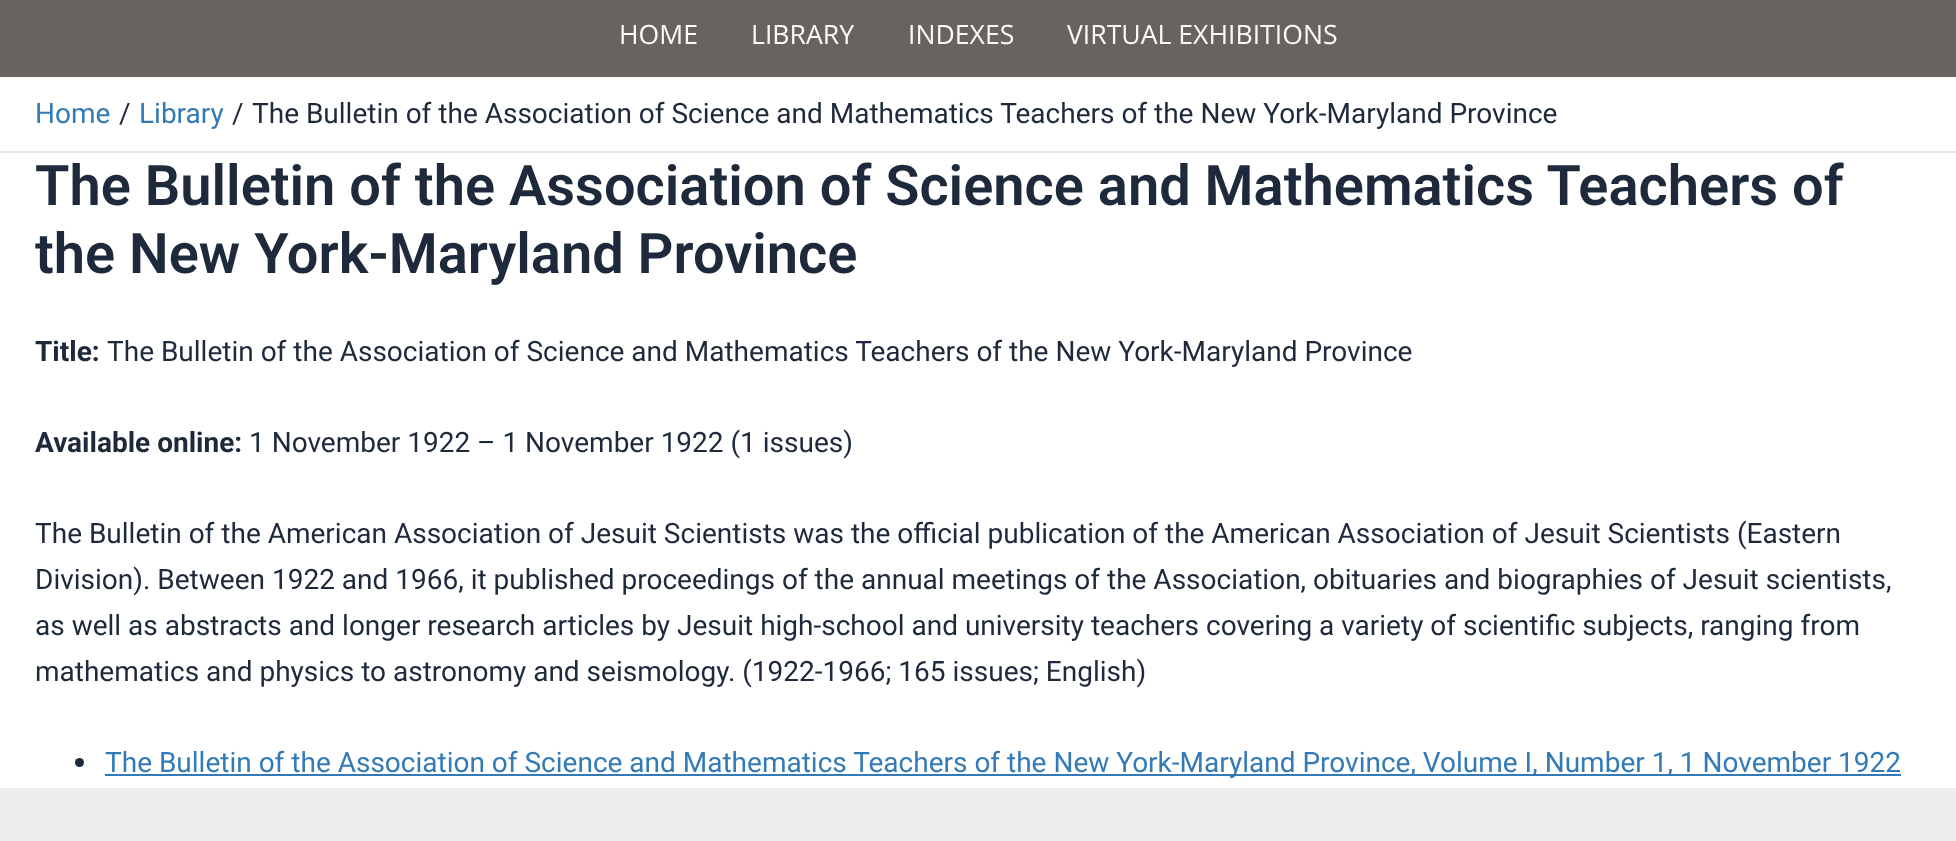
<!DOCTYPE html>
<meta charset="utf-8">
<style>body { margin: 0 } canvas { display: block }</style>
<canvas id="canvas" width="1956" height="841"></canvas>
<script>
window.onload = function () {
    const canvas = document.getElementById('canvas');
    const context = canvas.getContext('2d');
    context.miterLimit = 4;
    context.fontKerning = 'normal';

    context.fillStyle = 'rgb(255, 255, 255)';
    context.fillRect(0, 0, 1956, 841);
    context.fillStyle = 'rgb(105, 99, 95)';
    context.fillRect(0, 0, 1956, 77);
    context.fillStyle = 'rgb(226, 232, 240)';
    context.fillRect(0, 151, 1956, 2);
    context.fillStyle = 'rgb(30, 41, 59)';
    context.beginPath();
    context.arc(79.5, 762.5, 4.5, 0, 2 * Math.PI);
    context.fill();
    context.fillStyle = 'rgb(51, 122, 183)';
    context.fillRect(105, 774, 1796, 2);
    context.fillStyle = 'rgb(238, 238, 238)';
    context.fillRect(0, 788, 1956, 53);
    context.font = '26.6px Open Sans';
    context.fillStyle = 'rgb(249, 250, 251)';
    context.fillText('HOME', 619, 44);
    context.fillText('LIBRARY', 751, 44);
    context.fillText('INDEXES', 908, 44);
    context.fillText('VIRTUAL EXHIBITIONS', 1067, 44);
    context.font = '28px Roboto';
    context.fillStyle = 'rgb(51, 122, 183)';
    context.fillText('Home', 35, 123);
    context.fillStyle = 'rgb(30, 41, 59)';
    context.fillText('/', 119, 123);
    context.fillStyle = 'rgb(51, 122, 183)';
    context.fillText('Library', 139, 123);
    context.fillStyle = 'rgb(30, 41, 59)';
    context.fillText('/', 232, 123);
    context.fillText('The Bulletin of the Association of Science and Mathematics Teachers of the New York-Maryland Province', 252, 123);
    context.font = '600 56px Roboto';
    context.fillText('The Bulletin of the Association of Science and Mathematics Teachers of', 35, 205);
    context.fillText('the New York-Maryland Province', 35, 273);
    context.font = 'bold 28px Roboto';
    context.fillText('Title:', 35, 361);
    context.font = '28px Roboto';
    context.fillText('The Bulletin of the Association of Science and Mathematics Teachers of the New York-Maryland Province', 107, 361);
    context.font = 'bold 28px Roboto';
    context.fillText('Available online:', 35, 452);
    context.font = '28px Roboto';
    context.fillText('1 November 1922 – 1 November 1922 (1 issues)', 249, 452);
    context.fillText('The Bulletin of the American Association of Jesuit Scientists was the official publication of the American Association of Jesuit Scientists (Eastern', 35, 543);
    context.fillText('Division). Between 1922 and 1966, it published proceedings of the annual meetings of the Association, obituaries and biographies of Jesuit scientists,', 35, 589);
    context.fillText('as well as abstracts and longer research articles by Jesuit high-school and university teachers covering a variety of scientific subjects, ranging from', 35, 635);
    context.fillText('mathematics and physics to astronomy and seismology. (1922-1966; 165 issues; English)', 35, 681);
    context.fillStyle = 'rgb(51, 122, 183)';
    context.fillText('The Bulletin of the Association of Science and Mathematics Teachers of the New York-Maryland Province, Volume I, Number 1, 1 November 1922', 105, 772);
};
</script>
